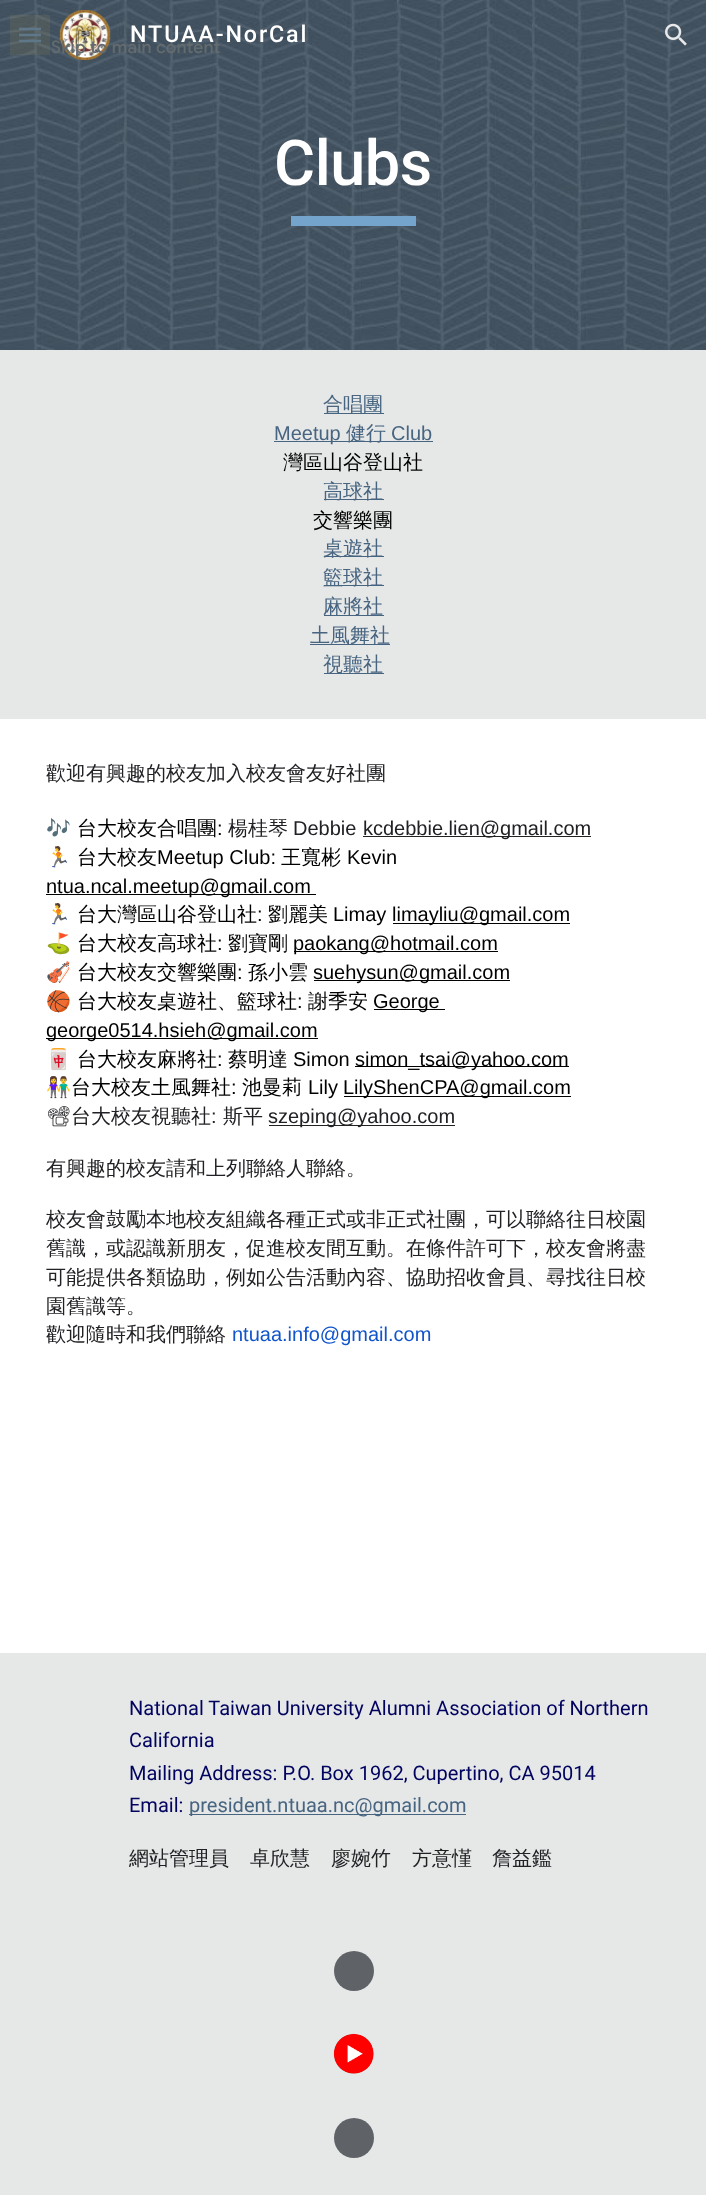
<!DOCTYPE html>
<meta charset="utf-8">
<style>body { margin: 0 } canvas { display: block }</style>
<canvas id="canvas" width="706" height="2195"></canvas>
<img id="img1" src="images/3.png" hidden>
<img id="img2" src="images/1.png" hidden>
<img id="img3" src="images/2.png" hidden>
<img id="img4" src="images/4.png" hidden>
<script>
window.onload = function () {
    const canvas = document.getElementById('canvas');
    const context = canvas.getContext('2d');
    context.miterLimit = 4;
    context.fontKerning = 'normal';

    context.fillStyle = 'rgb(255, 255, 255)';
    context.fillRect(0, 0, 706, 2195);
    context.drawImage(document.getElementById('img1'), 0, 0, 706, 350);
    context.beginPath();
    context.moveTo(19, 29);
    context.lineTo(41, 29);
    context.moveTo(19, 35);
    context.lineTo(41, 35);
    context.moveTo(19, 41);
    context.lineTo(41, 41);
    context.strokeStyle = 'rgb(83, 115, 145)';
    context.lineWidth = 2.5;
    context.stroke();
    context.fillStyle = 'rgba(183, 153, 81, 0.12)';
    context.fillRect(10, 15, 40, 40);
    context.drawImage(document.getElementById('img2'), 59, 10, 52, 51);
    context.drawImage(document.getElementById('img3'), 665, 23, 22, 23);
    context.fillStyle = 'rgb(116, 164, 203)';
    context.fillRect(291, 216, 125, 10);
    context.fillStyle = 'rgb(230, 231, 231)';
    context.fillRect(0, 350, 706, 369);
    context.fillStyle = 'rgb(71, 101, 129)';
    context.fillRect(324, 413, 60, 1);
    context.fillRect(274, 441, 159, 1);
    context.fillRect(324, 499, 60, 1);
    context.fillRect(324, 556, 60, 1);
    context.fillRect(324, 585, 60, 1);
    context.fillRect(324, 615, 60, 1);
    context.fillRect(310, 644, 80, 1);
    context.fillRect(324, 673, 60, 1);
    context.fillStyle = 'rgb(33, 33, 33)';
    context.fillRect(363, 836, 228, 1);
    context.fillStyle = 'rgb(0, 0, 0)';
    context.fillRect(46, 894, 270, 1);
    context.fillRect(393, 923, 177, 1);
    context.fillRect(294, 951, 204, 1);
    context.fillRect(314, 980, 196, 1);
    context.fillRect(374, 1009, 71, 1);
    context.fillRect(46, 1038, 272, 1);
    context.fillRect(355, 1066, 214, 1);
    context.fillRect(344, 1096, 227, 1);
    context.fillStyle = 'rgb(33, 33, 33)';
    context.fillRect(269, 1125, 186, 1);
    context.fillStyle = 'rgb(230, 231, 231)';
    context.fillRect(0, 1653, 706, 542);
    context.fillStyle = 'rgb(71, 101, 129)';
    context.fillRect(189, 1814, 277, 1);
    context.fillStyle = 'rgb(95, 99, 104)';
    context.beginPath();
    context.arc(354, 1971, 20, 0, 2 * Math.PI);
    context.fill();
    context.drawImage(document.getElementById('img4'), 333, 2033, 41, 41);
    context.beginPath();
    context.arc(354, 2138, 20, 0, 2 * Math.PI);
    context.fill();
    context.letterSpacing = '1.9px';
    context.font = '500 23.25px Roboto';
    context.fillStyle = 'rgb(255, 255, 255)';
    context.fillText('NTUAA-NorCal', 130, 42);
    context.letterSpacing = '-0.5px';
    context.font = '500 63px Roboto';
    context.fillText('Clubs', 274, 185);
    context.letterSpacing = '0px';
    context.font = '500 20px WenQuanYi Zen Hei';
    context.fillStyle = 'rgb(71, 101, 129)';
    context.fillText('合唱團', 323, 411);
    context.font = '20px Liberation Sans';
    context.fillText('Meetup', 274, 440);
    context.font = '500 20px WenQuanYi Zen Hei';
    context.fillText('健行', 346, 440);
    context.font = '20px Liberation Sans';
    context.fillText('Club', 391, 440);
    context.font = '500 20px WenQuanYi Zen Hei';
    context.fillStyle = 'rgb(0, 0, 0)';
    context.fillText('灣區山谷登山社', 283, 469);
    context.fillStyle = 'rgb(71, 101, 129)';
    context.fillText('高球社', 323, 498);
    context.fillStyle = 'rgb(0, 0, 0)';
    context.fillText('交響樂團', 313, 527);
    context.fillStyle = 'rgb(71, 101, 129)';
    context.fillText('桌遊社', 323, 555);
    context.fillText('籃球社', 323, 584);
    context.fillText('麻將社', 323, 613);
    context.fillText('土風舞社', 310, 642);
    context.fillText('視聽社', 323, 671);
    context.fillStyle = 'rgb(32, 33, 36)';
    context.fillText('歡迎有興趣的校友加入校友會友好社團', 46, 780);
    context.font = '20px Noto Color Emoji';
    context.fillText('🎶', 46, 835);
    context.font = '500 20px WenQuanYi Zen Hei';
    context.fillStyle = 'rgb(0, 0, 0)';
    context.fillText('台大校友合唱團', 77, 835);
    context.font = '20px Liberation Sans';
    context.fillText(':', 217, 835);
    context.font = '500 20px WenQuanYi Zen Hei';
    context.fillStyle = 'rgb(32, 33, 36)';
    context.fillText('楊桂琴', 228, 835);
    context.font = '20px Liberation Sans';
    context.fillText('Debbie', 293, 835);
    context.fillText('kcdebbie.lien@gmail.com', 363, 835);
    context.font = '20px Noto Color Emoji';
    context.fillStyle = 'rgb(0, 0, 0)';
    context.fillText('🏃', 46, 864);
    context.font = '500 20px WenQuanYi Zen Hei';
    context.fillText('台大校友', 77, 864);
    context.font = '20px Liberation Sans';
    context.fillText('Meetup Club:', 157, 864);
    context.font = '500 20px WenQuanYi Zen Hei';
    context.fillText('王寬彬', 281, 864);
    context.font = '20px Liberation Sans';
    context.fillText('Kevin', 347, 864);
    context.fillText('ntua.ncal.meetup@gmail.com', 46, 893);
    context.font = '20px Noto Color Emoji';
    context.fillText('🏃', 46, 921);
    context.font = '500 20px WenQuanYi Zen Hei';
    context.fillText('台大灣區山谷登山社', 77, 921);
    context.font = '20px Liberation Sans';
    context.fillText(':', 257, 921);
    context.font = '500 20px WenQuanYi Zen Hei';
    context.fillText('劉麗美', 268, 921);
    context.font = '20px Liberation Sans';
    context.fillText('Limay', 333, 921);
    context.fillText('limayliu@gmail.com', 392, 921);
    context.font = '20px Noto Color Emoji';
    context.fillText('⛳', 46, 950);
    context.font = '500 20px WenQuanYi Zen Hei';
    context.fillText('台大校友高球社', 77, 950);
    context.font = '20px Liberation Sans';
    context.fillText(':', 217, 950);
    context.font = '500 20px WenQuanYi Zen Hei';
    context.fillText('劉寶剛', 228, 950);
    context.font = '20px Liberation Sans';
    context.fillText('paokang@hotmail.com', 293, 950);
    context.font = '20px Noto Color Emoji';
    context.fillText('🎻', 46, 979);
    context.font = '500 20px WenQuanYi Zen Hei';
    context.fillText('台大校友交響樂團', 77, 979);
    context.font = '20px Liberation Sans';
    context.fillText(':', 237, 979);
    context.font = '500 20px WenQuanYi Zen Hei';
    context.fillText('孫小雲', 248, 979);
    context.font = '20px Liberation Sans';
    context.fillText('suehysun@gmail.com', 313, 979);
    context.font = '20px Noto Color Emoji';
    context.fillText('🏀', 46, 1008);
    context.font = '500 20px WenQuanYi Zen Hei';
    context.fillText('台大校友桌遊社、籃球社', 77, 1008);
    context.font = '20px Liberation Sans';
    context.fillText(':', 297, 1008);
    context.font = '500 20px WenQuanYi Zen Hei';
    context.fillText('謝季安', 308, 1008);
    context.font = '20px Liberation Sans';
    context.fillText('George', 373, 1008);
    context.fillText('george0514.hsieh@gmail.com', 46, 1037);
    context.font = '20px Noto Color Emoji';
    context.fillText('🀄', 46, 1066);
    context.font = '500 20px WenQuanYi Zen Hei';
    context.fillText('台大校友麻將社', 77, 1066);
    context.font = '20px Liberation Sans';
    context.fillText(':', 217, 1066);
    context.font = '500 20px WenQuanYi Zen Hei';
    context.fillText('蔡明達', 228, 1066);
    context.font = '20px Liberation Sans';
    context.fillText('Simon', 293, 1066);
    context.fillText('simon_tsai@yahoo.com', 355, 1066);
    context.font = '20px Noto Color Emoji';
    context.fillText('👫', 46, 1094);
    context.font = '500 20px WenQuanYi Zen Hei';
    context.fillText('台大校友土風舞社', 71, 1094);
    context.font = '20px Liberation Sans';
    context.fillText(':', 231, 1094);
    context.font = '500 20px WenQuanYi Zen Hei';
    context.fillText('池曼莉', 242, 1094);
    context.font = '20px Liberation Sans';
    context.fillText('Lily', 308, 1094);
    context.fillText('LilyShenCPA@gmail.com', 343, 1094);
    context.font = '20px Noto Emoji';
    context.fillStyle = 'rgb(32, 33, 36)';
    context.fillText('📽', 46, 1123);
    context.font = '500 20px WenQuanYi Zen Hei';
    context.fillText('台大校友視聽社', 71, 1123);
    context.font = '20px Liberation Sans';
    context.fillText(':', 211, 1123);
    context.font = '500 20px WenQuanYi Zen Hei';
    context.fillText('斯平', 223, 1123);
    context.font = '20px Liberation Sans';
    context.fillText('szeping@yahoo.com', 268, 1123);
    context.font = '500 20px WenQuanYi Zen Hei';
    context.fillText('有興趣的校友請和上列聯絡人聯絡。', 46, 1175);
    context.fillText('校友會鼓勵本地校友組織各種正式或非正式社團，可以聯絡往日校園', 46, 1226);
    context.fillText('舊識，或認識新朋友，促進校友間互動。在條件許可下，校友會將盡', 46, 1255);
    context.fillText('可能提供各類協助，例如公告活動內容、協助招收會員、尋找往日校', 46, 1284);
    context.fillText('園舊識等。', 46, 1313);
    context.fillText('歡迎隨時和我們聯絡', 46, 1341);
    context.font = '20px Liberation Sans';
    context.fillStyle = 'rgb(17, 85, 204)';
    context.fillText('ntuaa.info@gmail.com', 232, 1341);
    context.font = '20px Roboto';
    context.fillStyle = 'rgb(1, 3, 95)';
    context.fillText('National Taiwan University Alumni Association of Northern', 129, 1715);
    context.fillText('California', 129, 1747);
    context.fillText('Mailing Address: P.O. Box 1962, Cupertino, CA 95014', 129, 1780);
    context.fillText('Email:', 129, 1812);
    context.fillStyle = 'rgb(71, 101, 129)';
    context.fillText('president.ntuaa.nc@gmail.com', 189, 1812);
    context.font = '500 20px WenQuanYi Zen Hei';
    context.fillStyle = 'rgb(32, 33, 36)';
    context.fillText('網站管理員', 129, 1865);
    context.fillText('卓欣慧', 250, 1865);
    context.fillText('廖婉竹', 331, 1865);
    context.fillText('方意慬', 412, 1865);
    context.fillText('詹益鑑', 492, 1865);
    context.letterSpacing = '0.2px';
    context.font = '500 17.5px Google Sans';
    context.fillStyle = 'rgb(100, 107, 110)';
    context.fillText('Skip to main content', 51, 53);
};
</script>
